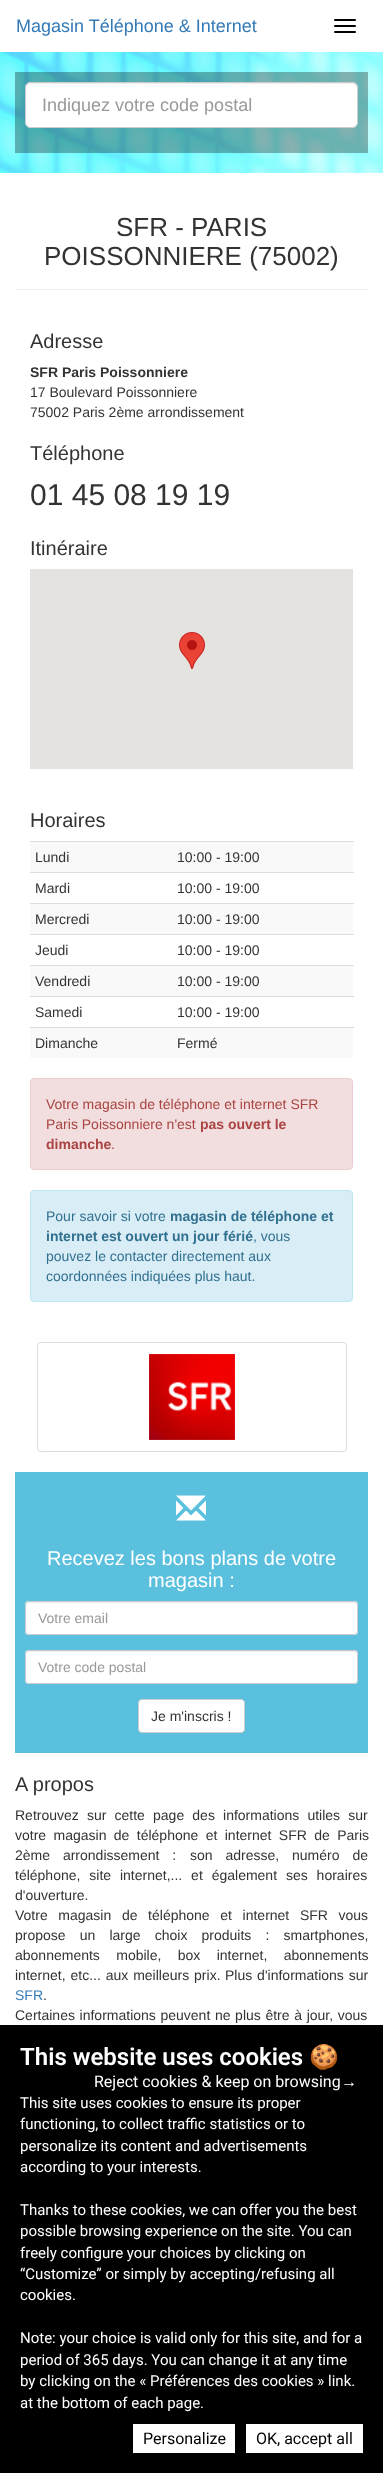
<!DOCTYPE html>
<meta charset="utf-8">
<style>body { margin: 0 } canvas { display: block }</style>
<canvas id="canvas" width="383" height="2473"></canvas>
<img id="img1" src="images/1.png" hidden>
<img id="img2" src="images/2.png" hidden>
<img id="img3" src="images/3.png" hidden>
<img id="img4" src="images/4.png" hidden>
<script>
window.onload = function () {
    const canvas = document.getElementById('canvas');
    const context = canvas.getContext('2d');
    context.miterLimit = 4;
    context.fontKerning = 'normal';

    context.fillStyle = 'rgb(255, 255, 255)';
    context.fillRect(0, 0, 383, 2473);
    context.fillStyle = 'rgb(0, 0, 0)';
    context.beginPath();
    context.roundRect(334, 19, 22, 2, 1);
    context.fill();
    context.beginPath();
    context.roundRect(334, 25, 22, 2, 1);
    context.fill();
    context.beginPath();
    context.roundRect(334, 31, 22, 2, 1);
    context.fill();
    context.drawImage(document.getElementById('img1'), 0, 52, 383, 121);
    context.fillStyle = 'rgba(0, 0, 0, 0.3)';
    context.fillRect(15, 72, 353, 81);
    context.fillStyle = 'rgb(255, 255, 255)';
    context.beginPath();
    context.roundRect(25, 82, 333, 46, 6);
    context.fill();
    context.fillStyle = 'rgb(236, 236, 236)';
    context.beginPath();
    context.moveTo(31, 84);
    context.lineTo(352, 84);
    context.bezierCurveTo(355, 84, 357, 86, 357, 89);
    context.bezierCurveTo(357, 86, 355, 83, 352, 83);
    context.lineTo(31, 83);
    context.bezierCurveTo(28, 83, 26, 86, 26, 89);
    context.bezierCurveTo(26, 86, 28, 84, 31, 84);
    context.closePath();
    context.fill();
    context.beginPath();
    context.roundRect(25.5, 82.5, 332, 45, 5.5);
    context.strokeStyle = 'rgb(204, 204, 204)';
    context.stroke();
    context.fillStyle = 'rgb(238, 238, 238)';
    context.fillRect(15, 289, 353, 1);
    context.fillStyle = 'rgb(229, 227, 223)';
    context.fillRect(30, 569, 323, 200);
    context.drawImage(document.getElementById('img2'), 179, 632, 26, 37);
    context.fillStyle = 'rgb(249, 249, 249)';
    context.fillRect(30, 842, 323, 30);
    context.fillStyle = 'rgb(221, 221, 221)';
    context.fillRect(30, 841, 324, 1);
    context.fillRect(30, 872, 324, 1);
    context.fillStyle = 'rgb(249, 249, 249)';
    context.fillRect(30, 904, 323, 30);
    context.fillStyle = 'rgb(221, 221, 221)';
    context.fillRect(30, 903, 324, 1);
    context.fillRect(30, 934, 324, 1);
    context.fillStyle = 'rgb(249, 249, 249)';
    context.fillRect(30, 966, 323, 30);
    context.fillStyle = 'rgb(221, 221, 221)';
    context.fillRect(30, 965, 324, 1);
    context.fillRect(30, 996, 324, 1);
    context.fillStyle = 'rgb(249, 249, 249)';
    context.fillRect(30, 1028, 323, 30);
    context.fillStyle = 'rgb(221, 221, 221)';
    context.fillRect(30, 1027, 324, 1);
    context.fillStyle = 'rgb(242, 222, 222)';
    context.beginPath();
    context.roundRect(30.5, 1078.5, 322, 91, 3.5);
    context.fill();
    context.strokeStyle = 'rgb(235, 204, 209)';
    context.stroke();
    context.fillStyle = 'rgb(217, 237, 247)';
    context.beginPath();
    context.roundRect(30.5, 1190.5, 322, 111, 3.5);
    context.fill();
    context.strokeStyle = 'rgb(188, 232, 241)';
    context.stroke();
    context.beginPath();
    context.roundRect(37.5, 1342.5, 309, 109, 3.5);
    context.strokeStyle = 'rgb(221, 221, 221)';
    context.stroke();
    context.drawImage(document.getElementById('img3'), 147, 1349, 93, 93);
    context.fillStyle = 'rgb(91, 192, 222)';
    context.fillRect(15, 1472, 353, 281);
    context.drawImage(document.getElementById('img4'), 176, 1495, 30, 26);
    context.fillStyle = 'rgb(255, 255, 255)';
    context.beginPath();
    context.roundRect(25, 1601, 333, 34, 4);
    context.fill();
    context.fillStyle = 'rgb(236, 236, 236)';
    context.beginPath();
    context.moveTo(29, 1603);
    context.lineTo(354, 1603);
    context.bezierCurveTo(356, 1603, 357, 1604, 357, 1606);
    context.bezierCurveTo(357, 1604, 356, 1602, 354, 1602);
    context.lineTo(29, 1602);
    context.bezierCurveTo(27, 1602, 26, 1604, 26, 1606);
    context.bezierCurveTo(26, 1604, 27, 1603, 29, 1603);
    context.closePath();
    context.fill();
    context.beginPath();
    context.roundRect(25.5, 1601.5, 332, 33, 3.5);
    context.strokeStyle = 'rgb(204, 204, 204)';
    context.stroke();
    context.fillStyle = 'rgb(255, 255, 255)';
    context.beginPath();
    context.roundRect(25, 1650, 333, 34, 4);
    context.fill();
    context.fillStyle = 'rgb(236, 236, 236)';
    context.beginPath();
    context.moveTo(29, 1652);
    context.lineTo(354, 1652);
    context.bezierCurveTo(356, 1652, 357, 1653, 357, 1655);
    context.bezierCurveTo(357, 1653, 356, 1651, 354, 1651);
    context.lineTo(29, 1651);
    context.bezierCurveTo(27, 1651, 26, 1653, 26, 1655);
    context.bezierCurveTo(26, 1653, 27, 1652, 29, 1652);
    context.closePath();
    context.fill();
    context.beginPath();
    context.roundRect(25.5, 1650.5, 332, 33, 3.5);
    context.stroke();
    context.fillStyle = 'rgb(255, 255, 255)';
    context.beginPath();
    context.roundRect(138.5, 1699.5, 106, 33, 3.5);
    context.fill();
    context.stroke();
    context.fillStyle = 'rgb(0, 0, 0)';
    context.fillRect(0, 2025, 383, 448);
    context.fillStyle = 'rgb(255, 255, 255)';
    context.fillRect(133, 2424, 102, 29);
    context.fillRect(246, 2424, 117, 29);
    context.font = '18px Liberation Sans';
    context.fillStyle = 'rgb(51, 122, 183)';
    context.fillText('Magasin Téléphone & Internet', 16, 32);
    context.fillStyle = 'rgb(153, 153, 153)';
    context.fillText('Indiquez votre code postal', 42, 111);
    context.font = '26px Liberation Sans';
    context.fillStyle = 'rgb(51, 51, 51)';
    context.fillText('SFR - PARIS', 116, 236);
    context.fillText('POISSONNIERE (75002)', 44, 265);
    context.font = '20px Liberation Sans';
    context.fillText('Adresse', 30, 348);
    context.font = 'bold 14px Liberation Sans';
    context.fillText('SFR Paris Poissonniere', 30, 377);
    context.font = '14px Liberation Sans';
    context.fillText('17 Boulevard Poissonniere', 30, 397);
    context.fillText('75002 Paris 2ème arrondissement', 30, 417);
    context.font = '20px Liberation Sans';
    context.fillText('Téléphone', 30, 460);
    context.font = '30px Liberation Sans';
    context.fillText('01 45 08 19 19', 30, 505);
    context.font = '20px Liberation Sans';
    context.fillText('Itinéraire', 30, 555);
    context.fillText('Horaires', 30, 827);
    context.font = '14px Liberation Sans';
    context.fillText('Lundi', 35, 862);
    context.fillText('10:00 - 19:00', 177, 862);
    context.fillText('Mardi', 35, 893);
    context.fillText('10:00 - 19:00', 177, 893);
    context.fillText('Mercredi', 35, 924);
    context.fillText('10:00 - 19:00', 177, 924);
    context.fillText('Jeudi', 35, 955);
    context.fillText('10:00 - 19:00', 177, 955);
    context.fillText('Vendredi', 35, 986);
    context.fillText('10:00 - 19:00', 177, 986);
    context.fillText('Samedi', 35, 1017);
    context.fillText('10:00 - 19:00', 177, 1017);
    context.fillText('Dimanche', 35, 1048);
    context.fillText('Fermé', 177, 1048);
    context.fillStyle = 'rgb(169, 68, 66)';
    context.fillText('Votre magasin de téléphone et internet SFR', 46, 1109);
    context.fillText('Paris Poissonniere n\'est', 46, 1129);
    context.font = 'bold 14px Liberation Sans';
    context.fillText('pas ouvert le', 200, 1129);
    context.fillText('dimanche', 46, 1149);
    context.font = '14px Liberation Sans';
    context.fillText('.', 111, 1149);
    context.fillStyle = 'rgb(49, 112, 143)';
    context.fillText('Pour savoir si votre', 46, 1221);
    context.font = 'bold 14px Liberation Sans';
    context.fillText('magasin de téléphone et', 170, 1221);
    context.fillText('internet est ouvert un jour férié', 46, 1241);
    context.font = '14px Liberation Sans';
    context.fillText(', vous', 253, 1241);
    context.fillText('pouvez le contacter directement aux', 46, 1261);
    context.fillText('coordonnées indiquées plus haut.', 46, 1281);
    context.font = '20px Liberation Sans';
    context.fillStyle = 'rgb(255, 255, 255)';
    context.fillText('Recevez les bons plans de votre', 47, 1565);
    context.fillText('magasin :', 148, 1587);
    context.font = '14px Liberation Sans';
    context.fillStyle = 'rgb(153, 153, 153)';
    context.fillText('Votre email', 38, 1623);
    context.fillText('Votre code postal', 38, 1672);
    context.fillStyle = 'rgb(51, 51, 51)';
    context.fillText('Je m\'inscris !', 151, 1721);
    context.font = '20px Liberation Sans';
    context.fillText('A propos', 15, 1791);
    context.wordSpacing = '4.25px';
    context.font = '14px Liberation Sans';
    context.fillText('Retrouvez sur cette page des informations utiles sur', 15, 1820);
    context.wordSpacing = '3.5px';
    context.fillText('votre magasin de téléphone et internet SFR de Paris', 15, 1840);
    context.wordSpacing = '9px';
    context.fillText('2ème arrondissement :', 15, 1860);
    context.fillText('son adresse, numéro de', 190, 1860);
    context.wordSpacing = '5px';
    context.fillText('téléphone, site internet,... et également ses horaires', 15, 1880);
    context.wordSpacing = '0px';
    context.fillText('d\'ouverture.', 15, 1900);
    context.wordSpacing = '6.75px';
    context.fillText('Votre magasin de téléphone et internet SFR vous', 15, 1920);
    context.wordSpacing = '10.25px';
    context.fillText('propose un large choix produits : smartphones,', 15, 1940);
    context.wordSpacing = '12.5px';
    context.fillText('abonnements mobile, box internet, abonnements', 15, 1960);
    context.wordSpacing = '1px';
    context.fillText('internet, etc... aux meilleurs prix.', 15, 1980);
    context.fillText('Plus d\'informations sur', 225, 1980);
    context.wordSpacing = '0px';
    context.fillStyle = 'rgb(51, 122, 183)';
    context.fillText('SFR', 15, 2000);
    context.fillStyle = 'rgb(51, 51, 51)';
    context.fillText('.', 43, 2000);
    context.wordSpacing = '0.75px';
    context.fillText('Certaines informations peuvent ne plus être à jour, vous', 15, 2020);
    context.wordSpacing = '0px';
    context.font = '600 24px Roboto';
    context.fillStyle = 'rgb(255, 255, 255)';
    context.fillText('This website uses cookies', 20, 2065);
    context.font = '24px Noto Color Emoji';
    context.fillText('🍪', 309, 2065);
    context.font = '16px Roboto';
    context.fillText('Reject cookies & keep on browsing', 94, 2087);
    context.font = '16px Liberation Sans';
    context.fillText('→', 341, 2087);
    context.font = '15px Roboto';
    context.fillText('This site uses cookies to ensure its proper', 20, 2108);
    context.fillText('functioning, to collect traffic statistics or to', 20, 2129);
    context.fillText('personalize its content and advertisements', 20, 2151);
    context.fillText('according to your interests.', 20, 2172);
    context.fillText('Thanks to these cookies, we can offer you the best', 20, 2215);
    context.fillText('possible browsing experience on the site. You can', 20, 2236);
    context.fillText('freely configure your choices by clicking on', 20, 2258);
    context.fillText('“Customize” or simply by accepting/refusing all', 20, 2279);
    context.fillText('cookies.', 20, 2300);
    context.fillText('Note: your choice is valid only for this site, and for a', 20, 2343);
    context.fillText('period of 365 days. You can change it at any time', 20, 2365);
    context.fillText('by clicking on the « Préférences des cookies » link.', 20, 2386);
    context.fillText('at the bottom of each page.', 20, 2408);
    context.font = '16px Roboto';
    context.fillStyle = 'rgb(0, 0, 0)';
    context.fillText('Personalize', 143, 2444);
    context.fillText('OK, accept all', 256, 2444);
};
</script>
